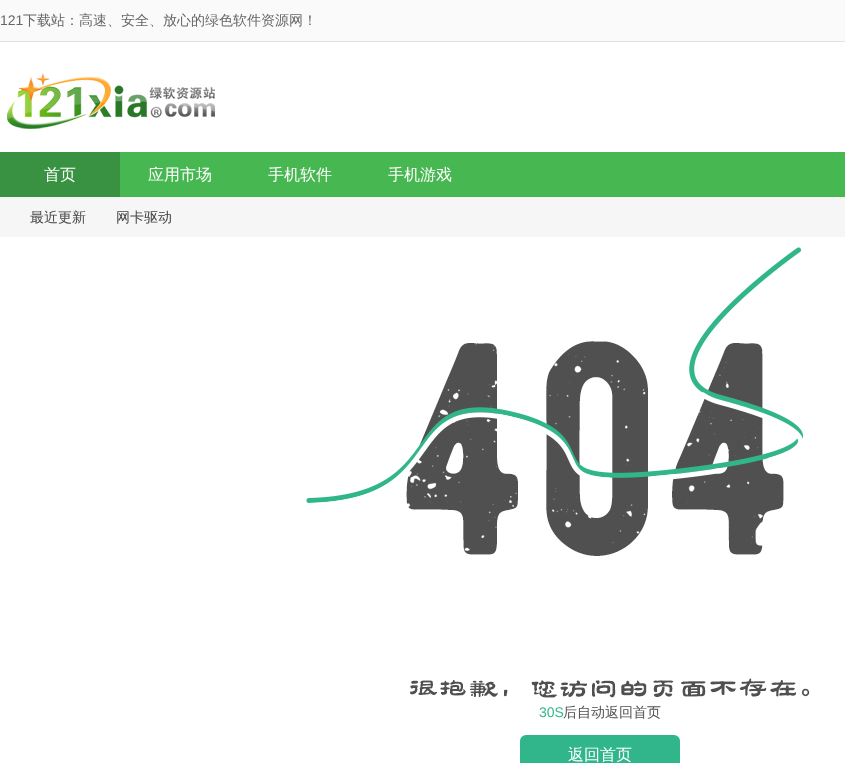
<!DOCTYPE html>
<meta charset="utf-8">
<style>body { margin: 0 } canvas { display: block }</style>
<canvas id="canvas" width="845" height="763"></canvas>
<img id="img1" src="images/1.png" hidden>
<img id="img2" src="images/2.png" hidden>
<script>
window.onload = function () {
    const canvas = document.getElementById('canvas');
    const context = canvas.getContext('2d');
    context.miterLimit = 4;
    context.fontKerning = 'normal';

    context.fillStyle = 'rgb(255, 255, 255)';
    context.fillRect(0, 0, 845, 763);
    context.fillStyle = 'rgb(250, 250, 250)';
    context.fillRect(0, 0, 845, 41);
    context.fillStyle = 'rgb(226, 226, 226)';
    context.fillRect(0, 41, 845, 1);
    context.drawImage(document.getElementById('img1'), 7, 73, 208, 56);
    context.fillStyle = 'rgb(71, 183, 81)';
    context.fillRect(120, 152, 725, 45);
    context.fillStyle = 'rgb(57, 146, 65)';
    context.fillRect(0, 152, 120, 45);
    context.fillStyle = 'rgb(246, 246, 246)';
    context.fillRect(0, 197, 845, 40);
    context.drawImage(document.getElementById('img2'), 306, 247, 504, 451);
    context.fillStyle = 'rgb(49, 182, 140)';
    context.beginPath();
    context.roundRect(520, 735, 160, 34, 6);
    context.fill();
    context.font = '14px Liberation Sans';
    context.fillStyle = 'rgb(102, 102, 102)';
    context.fillText('121', 0, 25);
    context.font = '500 14px WenQuanYi Zen Hei';
    context.fillText('下载站：高速、安全、放心的绿色软件资源网！', 23, 25);
    context.font = '500 16px WenQuanYi Zen Hei';
    context.fillStyle = 'rgb(255, 255, 255)';
    context.fillText('首页', 44, 180);
    context.fillText('应用市场', 148, 180);
    context.fillText('手机软件', 268, 180);
    context.fillText('手机游戏', 388, 180);
    context.font = '500 14px WenQuanYi Zen Hei';
    context.fillStyle = 'rgb(68, 68, 68)';
    context.fillText('最近更新', 30, 222);
    context.fillText('网卡驱动', 116, 222);
    context.font = '14px Liberation Sans';
    context.fillStyle = 'rgb(49, 182, 140)';
    context.fillText('30S', 539, 717);
    context.font = '500 14px WenQuanYi Zen Hei';
    context.fillStyle = 'rgb(80, 80, 80)';
    context.fillText('后自动返回首页', 563, 717);
    context.font = '500 16px WenQuanYi Zen Hei';
    context.fillStyle = 'rgb(255, 255, 255)';
    context.fillText('返回首页', 568, 760);
};
</script>
